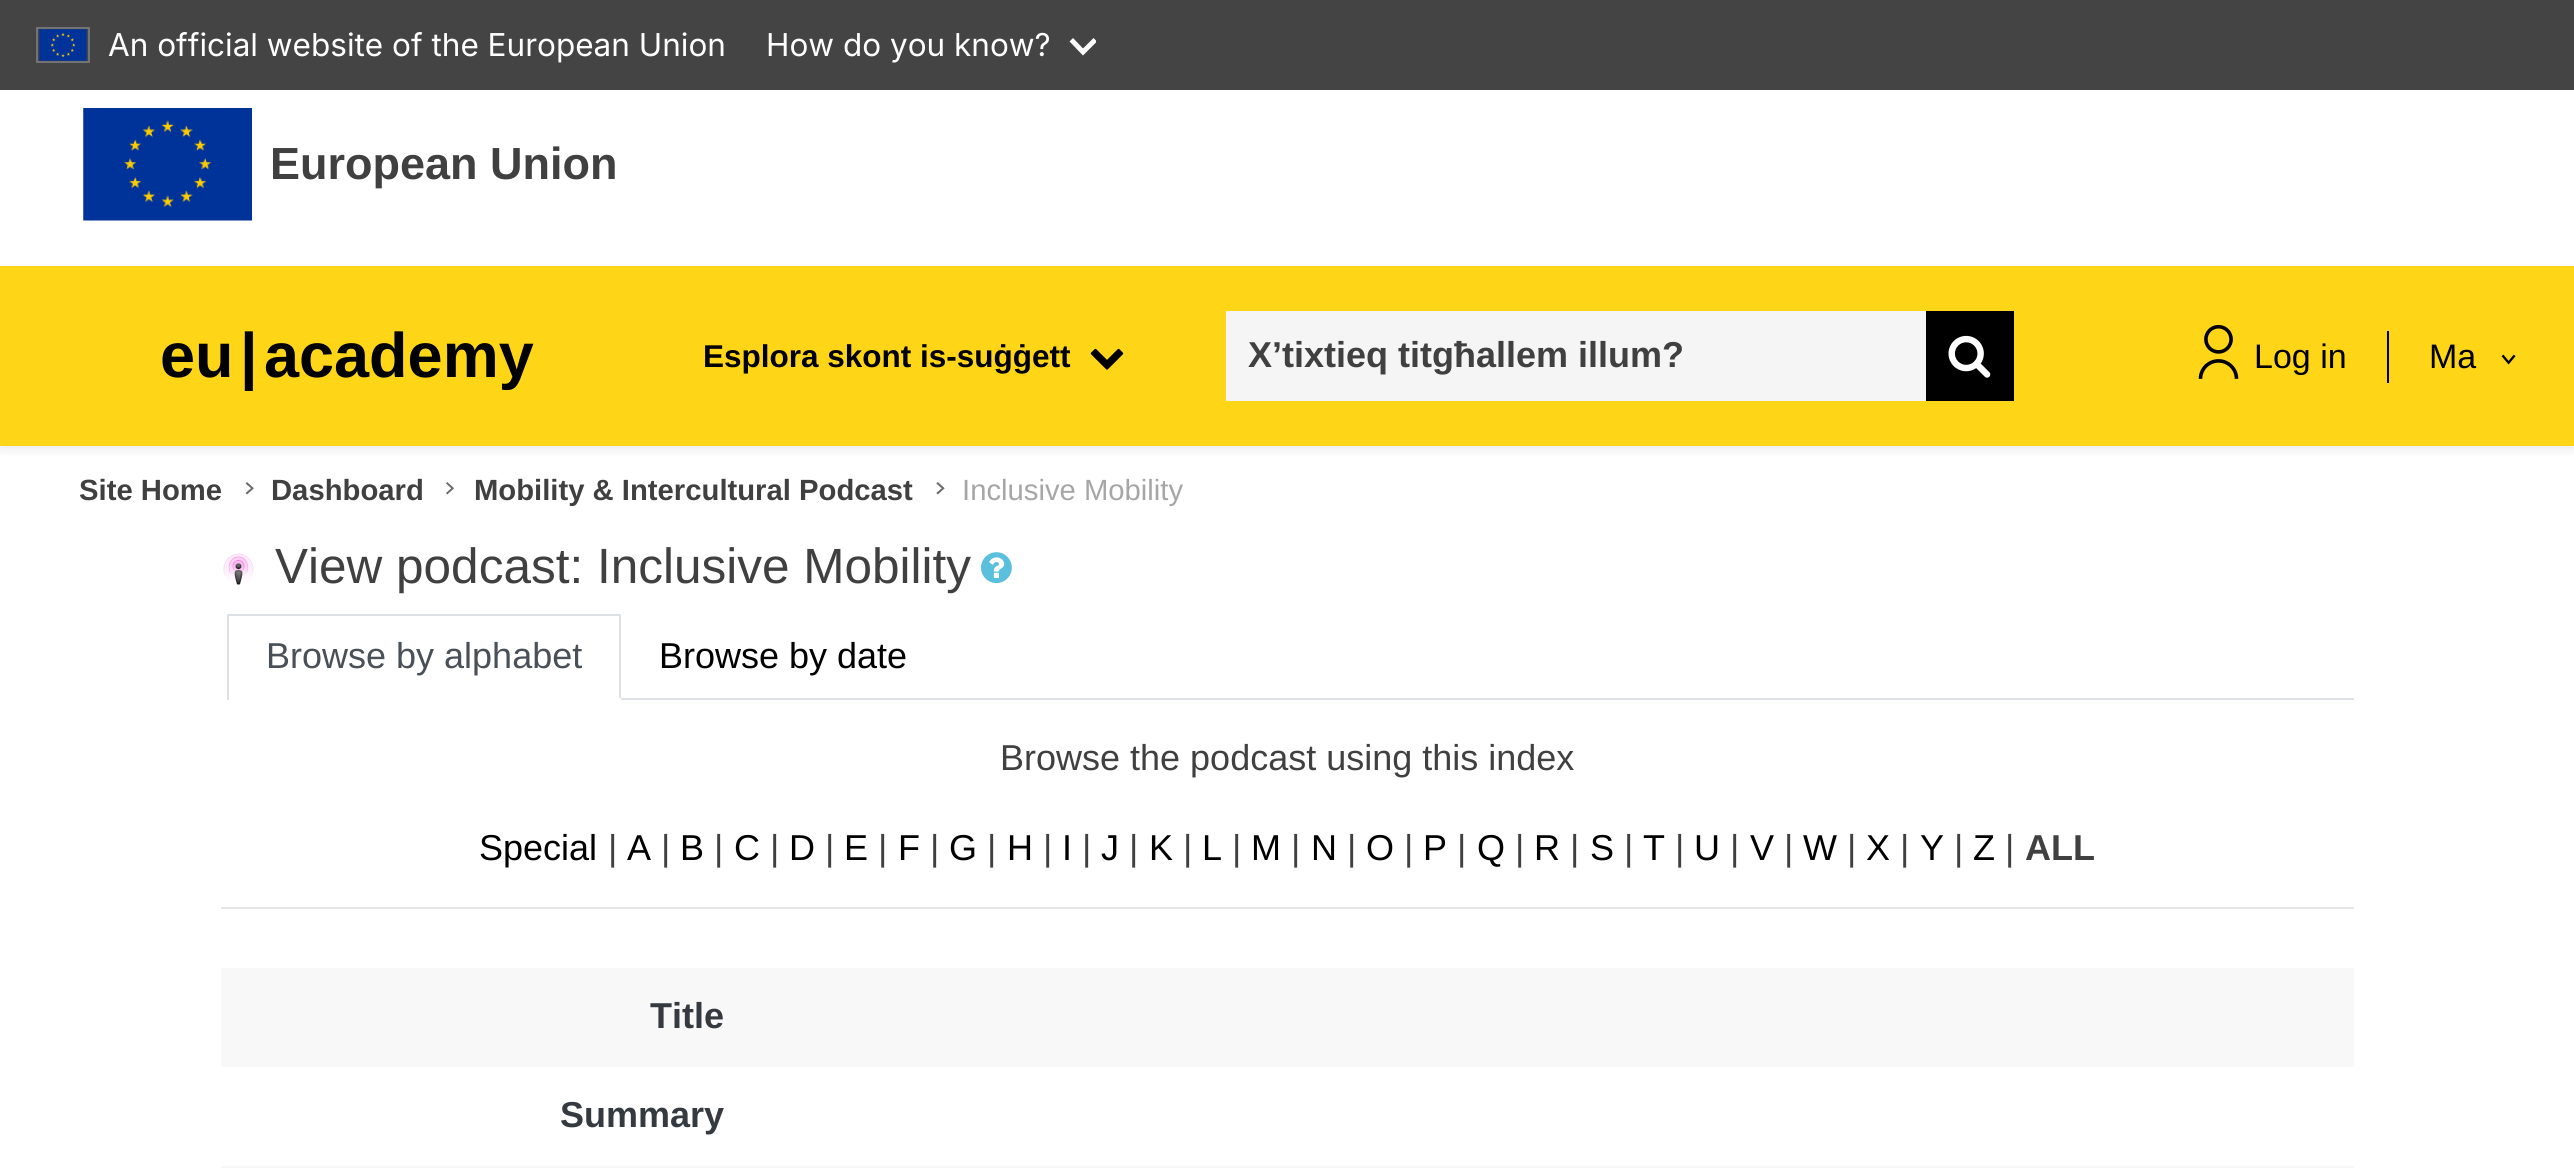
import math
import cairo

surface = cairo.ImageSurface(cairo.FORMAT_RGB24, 2574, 1168)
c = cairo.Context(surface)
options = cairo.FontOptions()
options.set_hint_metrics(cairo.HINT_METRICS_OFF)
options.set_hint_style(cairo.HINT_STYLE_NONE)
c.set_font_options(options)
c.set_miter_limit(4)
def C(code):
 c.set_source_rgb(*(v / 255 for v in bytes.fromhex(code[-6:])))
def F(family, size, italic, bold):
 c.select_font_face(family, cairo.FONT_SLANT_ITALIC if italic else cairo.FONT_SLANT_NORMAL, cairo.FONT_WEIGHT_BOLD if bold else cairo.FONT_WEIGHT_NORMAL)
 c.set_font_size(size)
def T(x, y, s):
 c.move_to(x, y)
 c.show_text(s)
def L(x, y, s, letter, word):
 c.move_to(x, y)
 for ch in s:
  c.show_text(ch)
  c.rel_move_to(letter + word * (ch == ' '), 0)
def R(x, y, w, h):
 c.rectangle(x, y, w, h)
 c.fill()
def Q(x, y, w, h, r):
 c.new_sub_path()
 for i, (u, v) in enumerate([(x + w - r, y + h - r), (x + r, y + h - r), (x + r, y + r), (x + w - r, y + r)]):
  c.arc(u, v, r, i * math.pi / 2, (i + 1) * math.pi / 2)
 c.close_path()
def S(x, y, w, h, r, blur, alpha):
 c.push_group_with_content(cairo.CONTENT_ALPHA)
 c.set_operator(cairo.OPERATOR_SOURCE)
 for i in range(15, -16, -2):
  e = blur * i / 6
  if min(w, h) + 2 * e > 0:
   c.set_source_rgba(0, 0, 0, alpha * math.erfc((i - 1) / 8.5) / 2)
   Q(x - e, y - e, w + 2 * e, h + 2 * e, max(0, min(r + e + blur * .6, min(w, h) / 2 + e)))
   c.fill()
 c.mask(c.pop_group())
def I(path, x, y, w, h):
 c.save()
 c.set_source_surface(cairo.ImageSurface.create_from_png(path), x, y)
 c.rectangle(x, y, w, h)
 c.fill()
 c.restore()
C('ffffff')
c.paint()
C('444444')
R(0,0,2574,90)
c.rectangle(37,28,52,34)
C('737373')
c.stroke()
I('1.png',39,29,48,32)
F('Inter',31.5,0,0)
C('ffffff')
T(108,56,'An official website of the European Union')
T(766,56,'How do you know?')
c.save()
c.rectangle(1069,32,27,27)
c.clip()
c.new_path()
c.move_to(1071.5,41.5)
c.line_to(1073,40)
c.line_to(1083,50.5)
c.line_to(1093.5,40)
c.line_to(1095,41.5)
c.line_to(1083,53.5)
c.close_path()
c.set_line_width(2.8)
c.stroke()
c.restore()
I('2.png',83,108,169,113)
F('Liberation Sans',45,0,1)
C('404040')
T(270,179,'European Union')
C('000000')
S(0,270,2574,180,0,4.5,.08)
C('ffd617')
R(0,266,2574,180)
F('Liberation Sans',63,0,1)
C('000000')
T(160,377,'eu')
L(240,377,'|',7,0)
T(264,377,'academy')
F('Liberation Sans',31.5,0,1)
T(703,367,'Esplora skont is-suġġett')
I('3.png',1090,348,34,22)
C('f5f5f5')
R(1226,311,700,90)
F('Liberation Sans',36,0,1)
C('404040')
T(1248,367,'X’tixtieq titgħallem illum?')
C('000000')
R(1926,311,88,90)
I('4.png',1948,335,43,43)
I('5.png',2198,324,41,55)
F('Liberation Sans',34,0,0)
T(2254,368,'Log in')
R(2387,331,2,52)
T(2429,368,'Ma')
I('6.png',2501,354,15,11)
F('Liberation Sans',29.25,0,1)
C('404040')
T(79,500,'Site Home')
I('7.png',245,482,9,13)
T(271,500,'Dashboard')
I('8.png',446,482,8,13)
T(474,500,'Mobility & Intercultural Podcast')
I('9.png',936,482,9,13)
F('Liberation Sans',29.25,0,0)
C('a6a6a6')
T(962,500,'Inclusive Mobility')
I('10.png',223,553,31,32)
F('Liberation Sans',49.5,0,0)
C('404040')
T(275,583,'View podcast: Inclusive Mobility')
I('11.png',981,552,31,32)
C('dee2e6')
R(621,698,1733,2)
R(227,614,394,2)
R(619,614,2,86)
C('ffffff')
R(619,698,2,2)
C('dee2e6')
R(227,614,2,86)
F('Liberation Sans',36,0,0)
C('495057')
T(266,668,'Browse by alphabet')
C('000000')
T(659,668,'Browse by date')
C('404040')
T(1000,770,'Browse the podcast using this index')
C('000000')
T(479,860,'Special')
C('404040')
T(608,860,'|')
C('000000')
T(627,860,'A')
C('404040')
T(661,860,'|')
C('000000')
T(680,860,'B')
C('404040')
T(714,860,'|')
C('000000')
T(734,860,'C')
C('404040')
T(770,860,'|')
C('000000')
T(789,860,'D')
C('404040')
T(825,860,'|')
C('000000')
T(844,860,'E')
C('404040')
T(878,860,'|')
C('000000')
T(898,860,'F')
C('404040')
T(930,860,'|')
C('000000')
T(949,860,'G')
C('404040')
T(987,860,'|')
C('000000')
T(1007,860,'H')
C('404040')
T(1043,860,'|')
C('000000')
T(1062,860,'I')
C('404040')
T(1082,860,'|')
C('000000')
T(1101,860,'J')
C('404040')
T(1129,860,'|')
C('000000')
T(1149,860,'K')
C('404040')
T(1183,860,'|')
C('000000')
T(1202,860,'L')
C('404040')
T(1232,860,'|')
C('000000')
T(1251,860,'M')
C('404040')
T(1291,860,'|')
C('000000')
T(1311,860,'N')
C('404040')
T(1347,860,'|')
C('000000')
T(1366,860,'O')
C('404040')
T(1404,860,'|')
C('000000')
T(1423,860,'P')
C('404040')
T(1457,860,'|')
C('000000')
T(1477,860,'Q')
C('404040')
T(1515,860,'|')
C('000000')
T(1534,860,'R')
C('404040')
T(1570,860,'|')
C('000000')
T(1590,860,'S')
C('404040')
T(1624,860,'|')
C('000000')
T(1643,860,'T')
C('404040')
T(1675,860,'|')
C('000000')
T(1694,860,'U')
C('404040')
T(1730,860,'|')
C('000000')
T(1750,860,'V')
C('404040')
T(1784,860,'|')
C('000000')
T(1803,860,'W')
C('404040')
T(1847,860,'|')
C('000000')
T(1866,860,'X')
C('404040')
T(1900,860,'|')
C('000000')
T(1920,860,'Y')
C('404040')
T(1954,860,'|')
C('000000')
T(1973,860,'Z')
C('404040')
T(2005,860,'|')
F('Liberation Sans',36,0,1)
T(2025,860,'ALL')
C('e6e6e6')
R(221,907,2133,2)
C('f8f8f8')
R(221,968,2133,99)
C('343a40')
T(650,1028,'Title')
T(560,1127,'Summary')
C('f7f7f7')
R(221,1166,2133,2)
surface.write_to_png('o.png')
